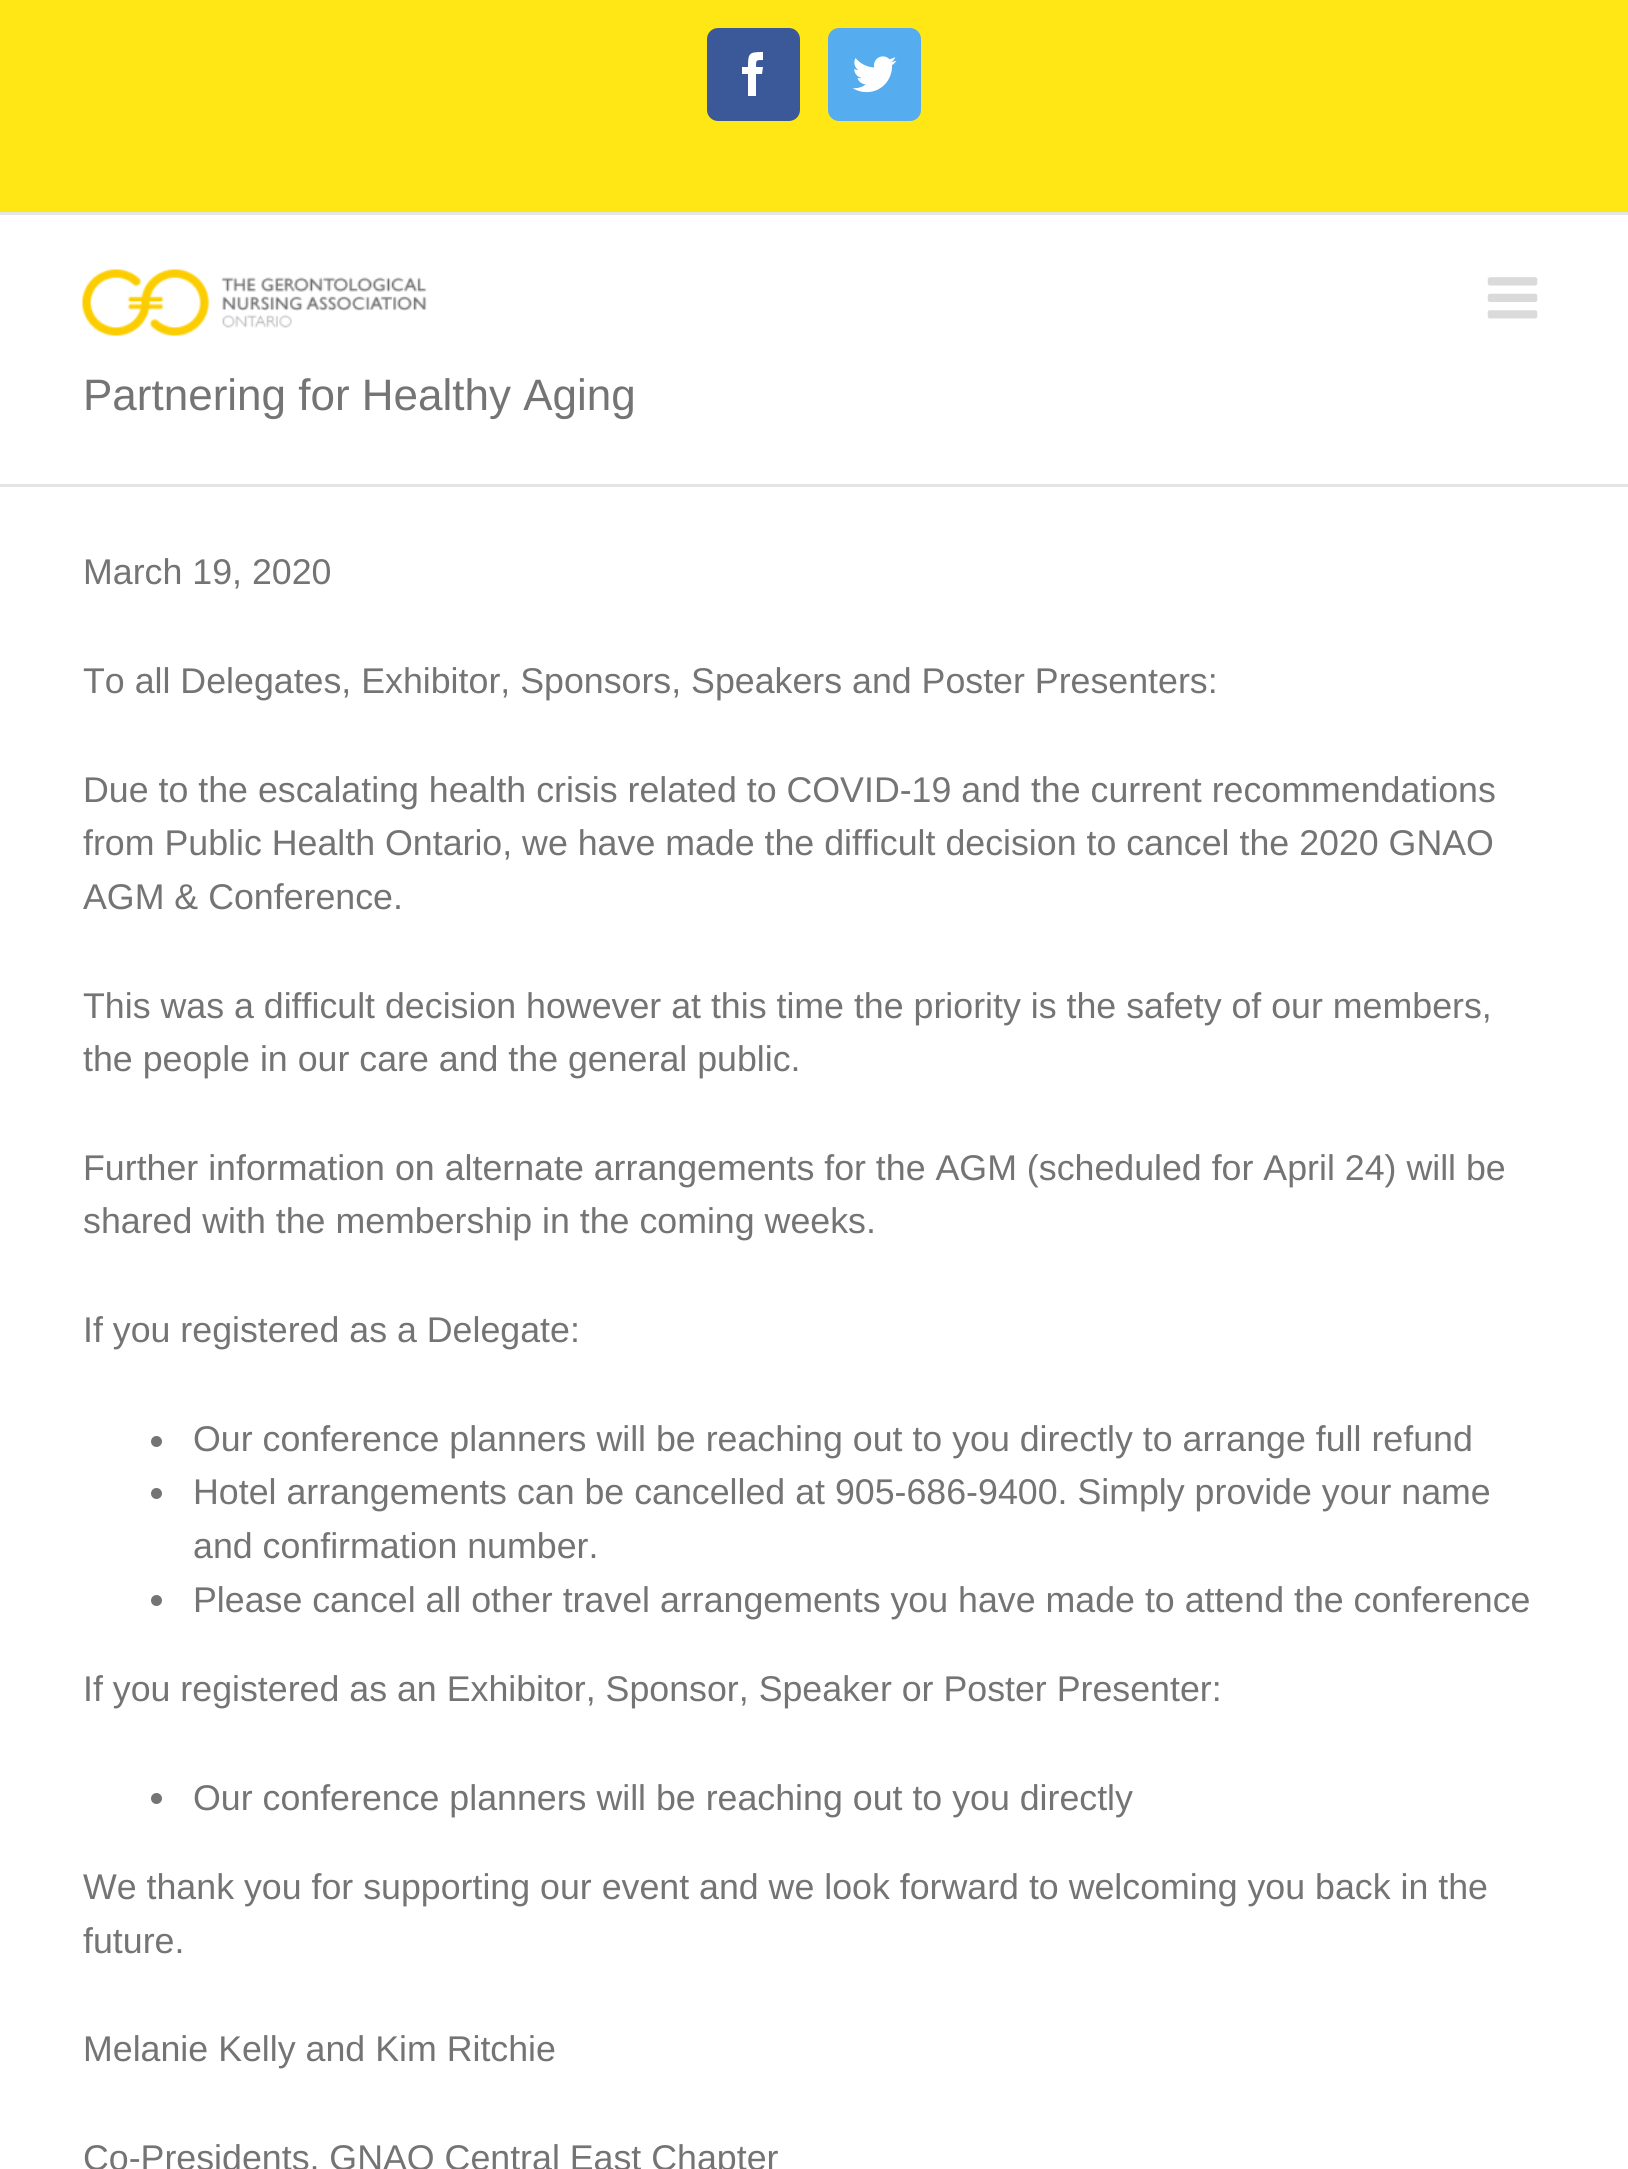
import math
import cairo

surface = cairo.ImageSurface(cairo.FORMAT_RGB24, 1628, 2169)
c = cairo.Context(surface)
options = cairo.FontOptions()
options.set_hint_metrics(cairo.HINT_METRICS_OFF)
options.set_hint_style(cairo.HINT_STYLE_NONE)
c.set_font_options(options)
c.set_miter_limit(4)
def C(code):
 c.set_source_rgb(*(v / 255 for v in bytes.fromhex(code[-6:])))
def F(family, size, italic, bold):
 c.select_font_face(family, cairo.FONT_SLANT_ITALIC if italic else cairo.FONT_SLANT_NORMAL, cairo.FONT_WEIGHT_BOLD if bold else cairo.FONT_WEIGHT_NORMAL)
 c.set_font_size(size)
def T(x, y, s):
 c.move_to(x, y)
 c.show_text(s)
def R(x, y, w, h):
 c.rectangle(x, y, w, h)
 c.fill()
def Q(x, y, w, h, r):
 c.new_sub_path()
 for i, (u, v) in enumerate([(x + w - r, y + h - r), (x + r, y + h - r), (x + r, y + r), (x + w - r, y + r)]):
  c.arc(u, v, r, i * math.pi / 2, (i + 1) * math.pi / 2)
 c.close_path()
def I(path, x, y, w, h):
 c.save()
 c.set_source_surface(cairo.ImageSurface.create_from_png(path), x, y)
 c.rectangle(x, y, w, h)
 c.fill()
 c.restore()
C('ffffff')
c.paint()
C('ffe716')
R(0,0,1628,212)
C('e5e5e5')
R(0,212,1628,3)
C('3b5998')
Q(708.5,29.5,90,90,9.5)
c.fill_preserve()
c.set_line_width(3)
c.stroke()
C('ffffff')
c.new_path()
c.move_to(756,96)
c.line_to(748,96)
c.line_to(748,74)
c.line_to(742,74)
c.line_to(742,67)
c.line_to(748,67)
c.curve_to(748,53,749,52,763,52)
c.line_to(763,60)
c.curve_to(756,60,756,60,756,67)
c.line_to(763,67)
c.line_to(762,74)
c.line_to(756,74)
c.close_path()
c.fill()
C('55acee')
Q(829.5,29.5,90,90,9.5)
c.fill_preserve()
c.stroke()
I('1.png',852,56,45,37)
C('e5e5e5')
R(0,484,1628,3)
I('2.png',1487,277,51,42)
I('3.png',82,269,345,67)
F('Liberation Sans',44,0,0)
C('747474')
T(83,410,'Partnering for Healthy Aging')
F('Liberation Sans',35.75,0,0)
T(83,584,'March 19, 2020')
T(83,693,'To all Delegates, Exhibitor, Sponsors, Speakers and Poster Presenters:')
T(83,802,'Due to the escalating health crisis related to COVID-19 and the current recommendations')
T(83,855,'from Public Health Ontario, we have made the difficult decision to cancel the 2020 GNAO')
T(83,909,'AGM & Conference.')
T(83,1018,'This was a difficult decision however at this time the priority is the safety of our members,')
T(83,1071,'the people in our care and the general public.')
T(83,1180,'Further information on alternate arrangements for the AGM (scheduled for April 24) will be')
T(83,1233,'shared with the membership in the coming weeks.')
T(83,1342,'If you registered as a Delegate:')
c.new_path()
c.arc(156.5,1441.5,5.5,0,2 * math.pi)
c.fill()
T(193,1451,'Our conference planners will be reaching out to you directly to arrange full refund')
c.new_path()
c.arc(156.5,1493.5,5.5,0,2 * math.pi)
c.fill()
T(193,1504,'Hotel arrangements can be cancelled at 905-686-9400. Simply provide your name')
T(193,1558,'and confirmation number.')
c.new_path()
c.arc(156.5,1600.5,5.5,0,2 * math.pi)
c.fill()
T(193,1612,'Please cancel all other travel arrangements you have made to attend the conference')
T(83,1701,'If you registered as an Exhibitor, Sponsor, Speaker or Poster Presenter:')
c.new_path()
c.arc(156.5,1798.5,5.5,0,2 * math.pi)
c.fill()
T(193,1810,'Our conference planners will be reaching out to you directly')
T(83,1899,'We thank you for supporting our event and we look forward to welcoming you back in the')
T(83,1953,'future.')
T(83,2061,'Melanie Kelly and Kim Ritchie')
T(83,2170,'Co-Presidents, GNAO Central East Chapter')
surface.write_to_png('o.png')
